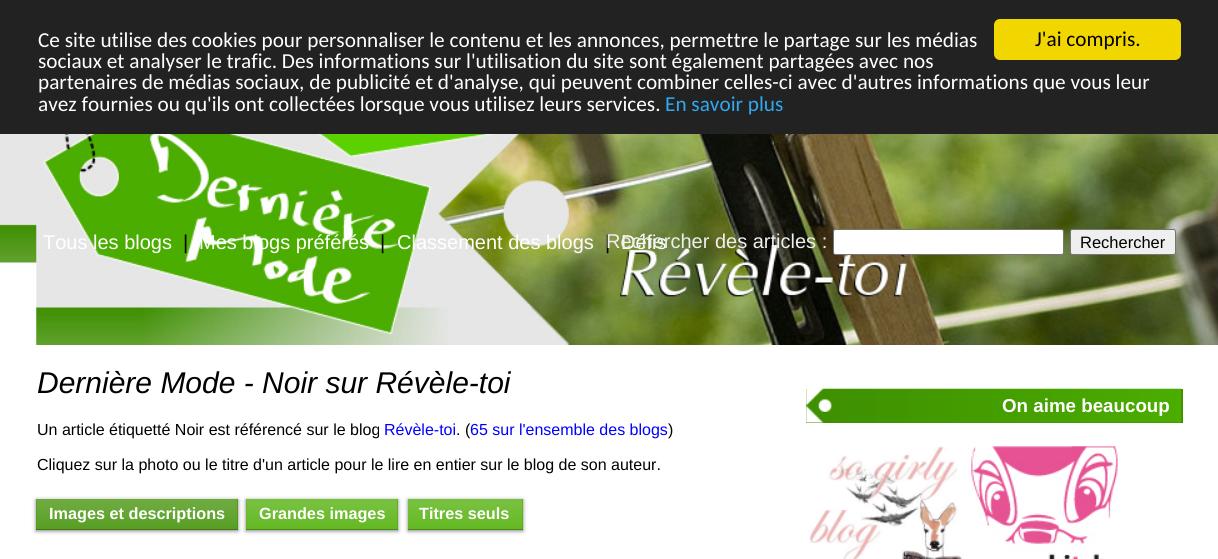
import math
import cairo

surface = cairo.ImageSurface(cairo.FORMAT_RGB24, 1218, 559)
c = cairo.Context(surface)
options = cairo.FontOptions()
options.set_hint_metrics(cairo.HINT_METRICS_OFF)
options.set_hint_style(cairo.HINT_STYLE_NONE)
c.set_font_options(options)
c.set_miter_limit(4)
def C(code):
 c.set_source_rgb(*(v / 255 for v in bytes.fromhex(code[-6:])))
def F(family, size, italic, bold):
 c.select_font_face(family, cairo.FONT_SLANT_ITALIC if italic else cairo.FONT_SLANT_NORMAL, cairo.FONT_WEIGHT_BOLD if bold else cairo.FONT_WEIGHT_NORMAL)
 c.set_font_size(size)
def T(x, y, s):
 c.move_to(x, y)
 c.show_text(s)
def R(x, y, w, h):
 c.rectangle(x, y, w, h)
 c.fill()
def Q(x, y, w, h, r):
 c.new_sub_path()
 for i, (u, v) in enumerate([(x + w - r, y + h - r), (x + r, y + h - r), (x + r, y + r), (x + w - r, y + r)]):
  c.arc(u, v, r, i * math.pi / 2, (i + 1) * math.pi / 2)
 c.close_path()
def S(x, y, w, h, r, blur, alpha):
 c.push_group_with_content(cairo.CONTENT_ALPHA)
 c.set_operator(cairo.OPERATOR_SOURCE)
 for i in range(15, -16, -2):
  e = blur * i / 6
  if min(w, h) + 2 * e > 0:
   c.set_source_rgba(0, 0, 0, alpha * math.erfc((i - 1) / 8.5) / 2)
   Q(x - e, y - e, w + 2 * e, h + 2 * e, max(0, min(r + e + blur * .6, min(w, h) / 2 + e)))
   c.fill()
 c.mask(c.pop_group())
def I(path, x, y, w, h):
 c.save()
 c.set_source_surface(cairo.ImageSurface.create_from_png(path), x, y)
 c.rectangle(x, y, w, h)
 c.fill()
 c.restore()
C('ffffff')
c.paint()
I('1.png',0,134,37,129)
C('222222')
R(0,0,1218,134)
C('f1d600')
Q(994,19,187,41,6)
c.fill()
F('Carlito',21.25,0,0)
C('000000')
T(1035,46,'J\'ai compris.')
C('ffffff')
T(38,47,'Ce site utilise des cookies pour personnaliser le contenu et les annonces, permettre le partage sur les médias')
T(38,68,'sociaux et analyser le trafic. Des informations sur l\'utilisation du site sont également partagées avec nos')
T(38,89,'partenaires de médias sociaux, de publicité et d\'analyse, qui peuvent combiner celles-ci avec d\'autres informations que vous leur')
T(38,111,'avez fournies ou qu\'ils ont collectées lorsque vous utilisez leurs services.')
C('31a8f0')
T(665,111,'En savoir plus')
I('2.png',36,134,1182,211)
F('Liberation Sans',20,0,0)
C('ffffff')
T(43,249,'Tous les blogs')
C('000000')
T(183,249,'|')
C('ffffff')
T(199,249,'Mes blogs préférés')
C('000000')
T(380,249,'|')
C('ffffff')
T(397,249,'Classement des blogs')
C('000000')
T(605,249,'|')
C('ffffff')
T(621,249,'Défis')
C('eeeeee')
T(606,248,'Rechercher des articles :')
C('ffffff')
Q(833.5,229.5,230,25,2)
c.fill_preserve()
C('767676')
c.set_line_width(1)
c.stroke()
C('efefef')
Q(1070.5,229.5,105,25,2)
c.fill_preserve()
C('767676')
c.stroke()
F('Liberation Sans',16.5,0,0)
C('000000')
T(1080,248,'Rechercher')
F('Liberation Sans',30,1,0)
T(37,393,'Dernière Mode - Noir sur Révèle-toi')
F('Liberation Sans',16,0,0)
T(37,435,'Un article étiquetté Noir est référencé sur le blog')
C('0000ff')
T(384,435,'Révèle-toi')
C('000000')
T(456,435,'. (')
C('0000ff')
T(470,435,'65 sur l\'ensemble des blogs')
C('000000')
T(668,435,')')
T(37,470,'Cliquez sur la photo ou le titre d\'un article pour le lire en entier sur le blog de son auteur.')
C('000000')
S(36,500,202,31,0,2,.5)
C('3e8f00')
R(36,499,202,31)
I('3.png',36,499,202,31)
c.set_source_rgba(0,0,0,0.25)
R(36,529,202,1)
F('Liberation Sans',16.25,0,1)
C('ffffff')
T(49,519,'Images et descriptions')
C('000000')
S(246,500,152,31,0,2,.5)
C('4bad00')
R(246,499,152,31)
I('4.png',246,499,152,31)
c.set_source_rgba(0,0,0,0.25)
R(246,529,152,1)
C('ffffff')
T(259,519,'Grandes images')
C('000000')
S(408,500,115,31,0,2,.5)
C('4bad00')
R(408,499,115,31)
I('5.png',408,499,115,31)
c.set_source_rgba(0,0,0,0.25)
R(408,529,115,1)
C('ffffff')
T(419,519,'Titres seuls')
C('3e8f00')
R(806,389,377,34)
I('6.png',806,388,376,35)
F('Liberation Sans',18.75,0,1)
C('ffffff')
T(1002,412,'On aime beaucoup')
I('7.png',808,446,154,113)
I('8.png',971,446,147,113)
surface.write_to_png('o.png')
